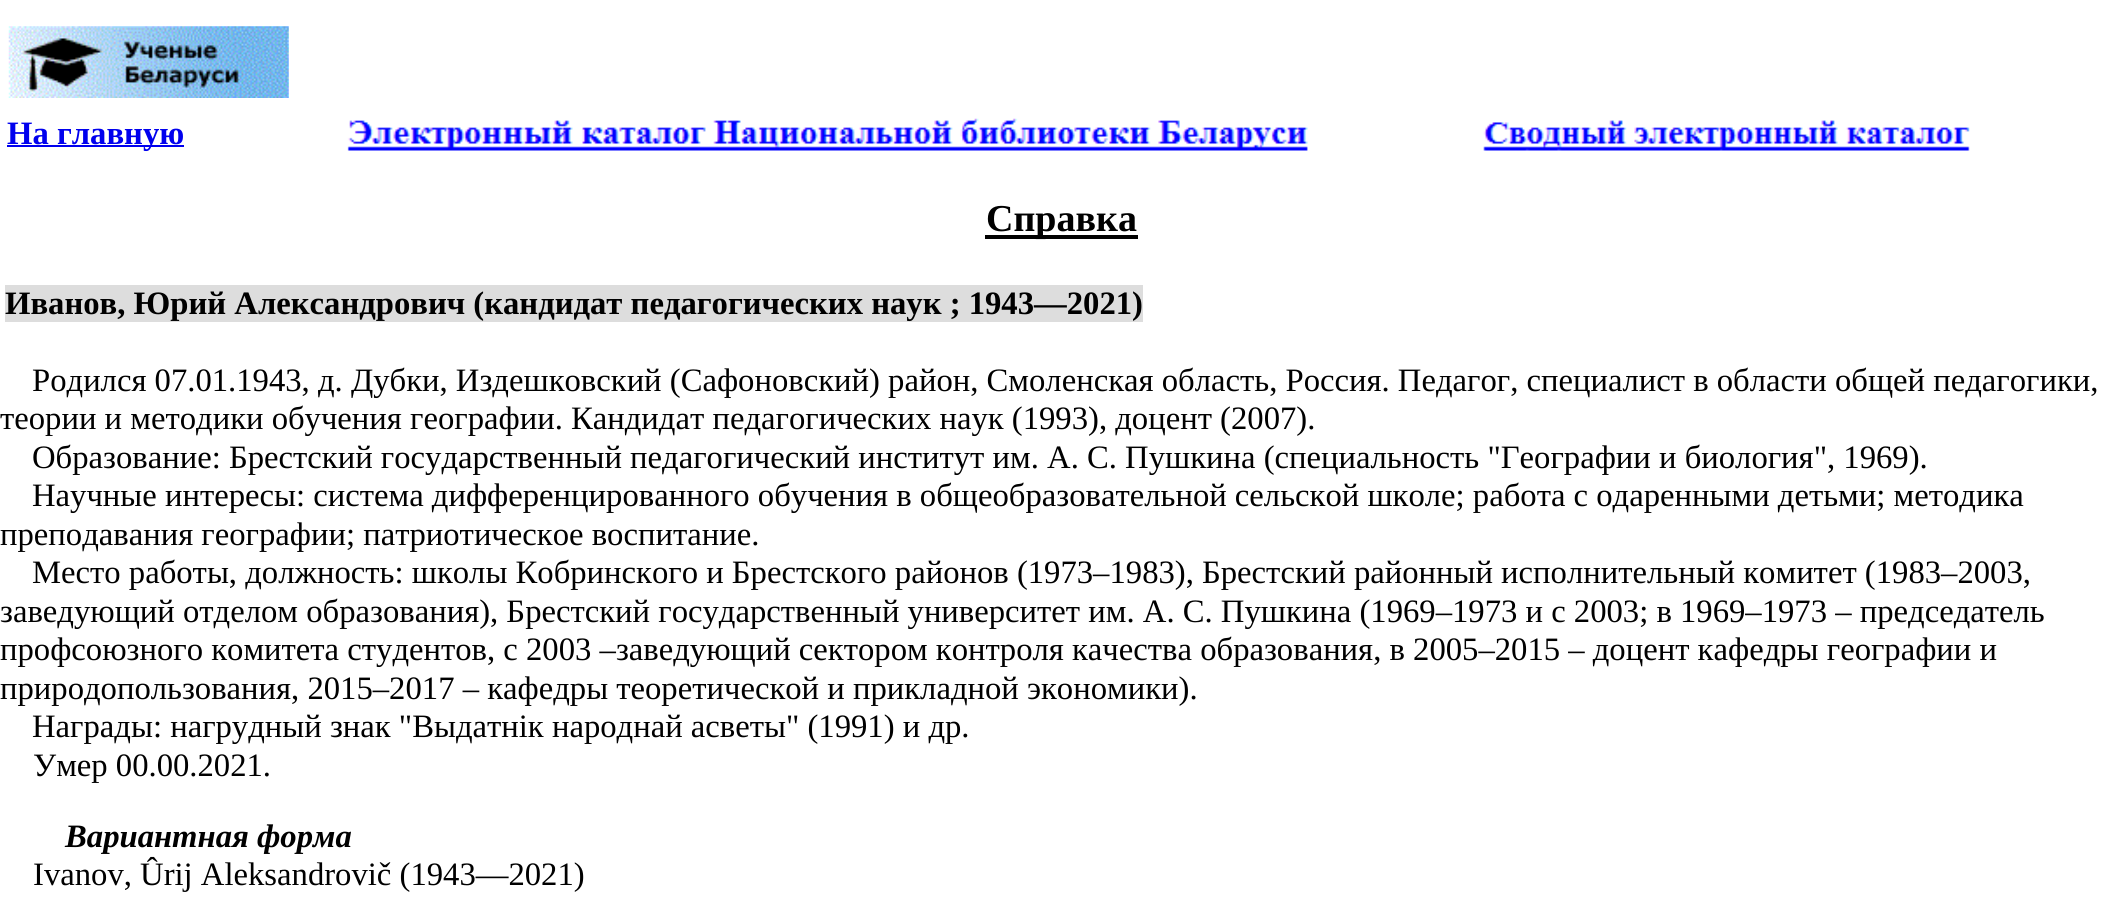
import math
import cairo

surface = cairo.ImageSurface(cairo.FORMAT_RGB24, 2122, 912)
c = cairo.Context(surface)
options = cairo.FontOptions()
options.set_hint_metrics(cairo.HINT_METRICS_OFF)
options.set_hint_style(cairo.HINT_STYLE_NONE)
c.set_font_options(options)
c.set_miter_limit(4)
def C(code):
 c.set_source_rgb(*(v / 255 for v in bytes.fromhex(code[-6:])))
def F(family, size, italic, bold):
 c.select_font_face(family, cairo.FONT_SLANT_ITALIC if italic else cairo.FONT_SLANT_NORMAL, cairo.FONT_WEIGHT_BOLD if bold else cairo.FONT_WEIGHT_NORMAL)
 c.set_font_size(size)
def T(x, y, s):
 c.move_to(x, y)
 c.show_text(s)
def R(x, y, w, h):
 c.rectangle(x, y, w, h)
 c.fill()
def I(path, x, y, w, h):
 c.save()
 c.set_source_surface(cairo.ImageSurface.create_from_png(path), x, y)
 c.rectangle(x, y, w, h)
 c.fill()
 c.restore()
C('ffffff')
c.paint()
I('1.png',8,26,281,72)
C('0000ee')
R(7,145,177,2)
F('Liberation Serif',32.67,0,1)
T(7,144,'На главную')
I('2.png',347,118,961,33)
I('3.png',1483,120,487,31)
C('000000')
R(985,235,153,4)
F('Liberation Serif',38,0,1)
T(986,231,'Справка')
C('dddddd')
R(5,285,1138,37)
F('Liberation Serif',32.67,0,1)
C('000000')
T(5,314,'Иванов, Юрий Александрович (кандидат педагогических наук ; 1943—2021)')
F('Liberation Serif',32.67,0,0)
T(32,391,'Родился 07.01.1943, д. Дубки, Издешковский (Сафоновский) район, Смоленская область, Россия. Педагог, специалист в области общей педагогики,')
T(0,429,'теории и методики обучения географии. Кандидат педагогических наук (1993), доцент (2007).')
T(32,468,'Образование: Брестский государственный педагогический институт им. А. С. Пушкина (специальность "Географии и биология", 1969).')
T(32,506,'Научные интересы: система дифференцированного обучения в общеобразовательной сельской школе; работа с одаренными детьми; методика')
T(0,545,'преподавания географии; патриотическое воспитание.')
T(32,583,'Место работы, должность: школы Кобринского и Брестского районов (1973–1983), Брестский районный исполнительный комитет (1983–2003,')
T(0,622,'заведующий отделом образования), Брестский государственный университет им. А. С. Пушкина (1969–1973 и с 2003; в 1969–1973 – председатель')
T(0,660,'профсоюзного комитета студентов, с 2003 –заведующий сектором контроля качества образования, в 2005–2015 – доцент кафедры географии и')
T(0,699,'природопользования, 2015–2017 – кафедры теоретической и прикладной экономики).')
T(32,737,'Награды: нагрудный знак "Выдатнік народнай асветы" (1991) и др.')
T(33,776,'Умер 00.00.2021.')
F('Liberation Serif',32.67,1,1)
T(65,847,'Вариантная форма')
F('Liberation Serif',32.67,0,0)
T(33,885,'Ivanov, Ûrij Aleksandrovič (1943—2021)')
surface.write_to_png('o.png')
